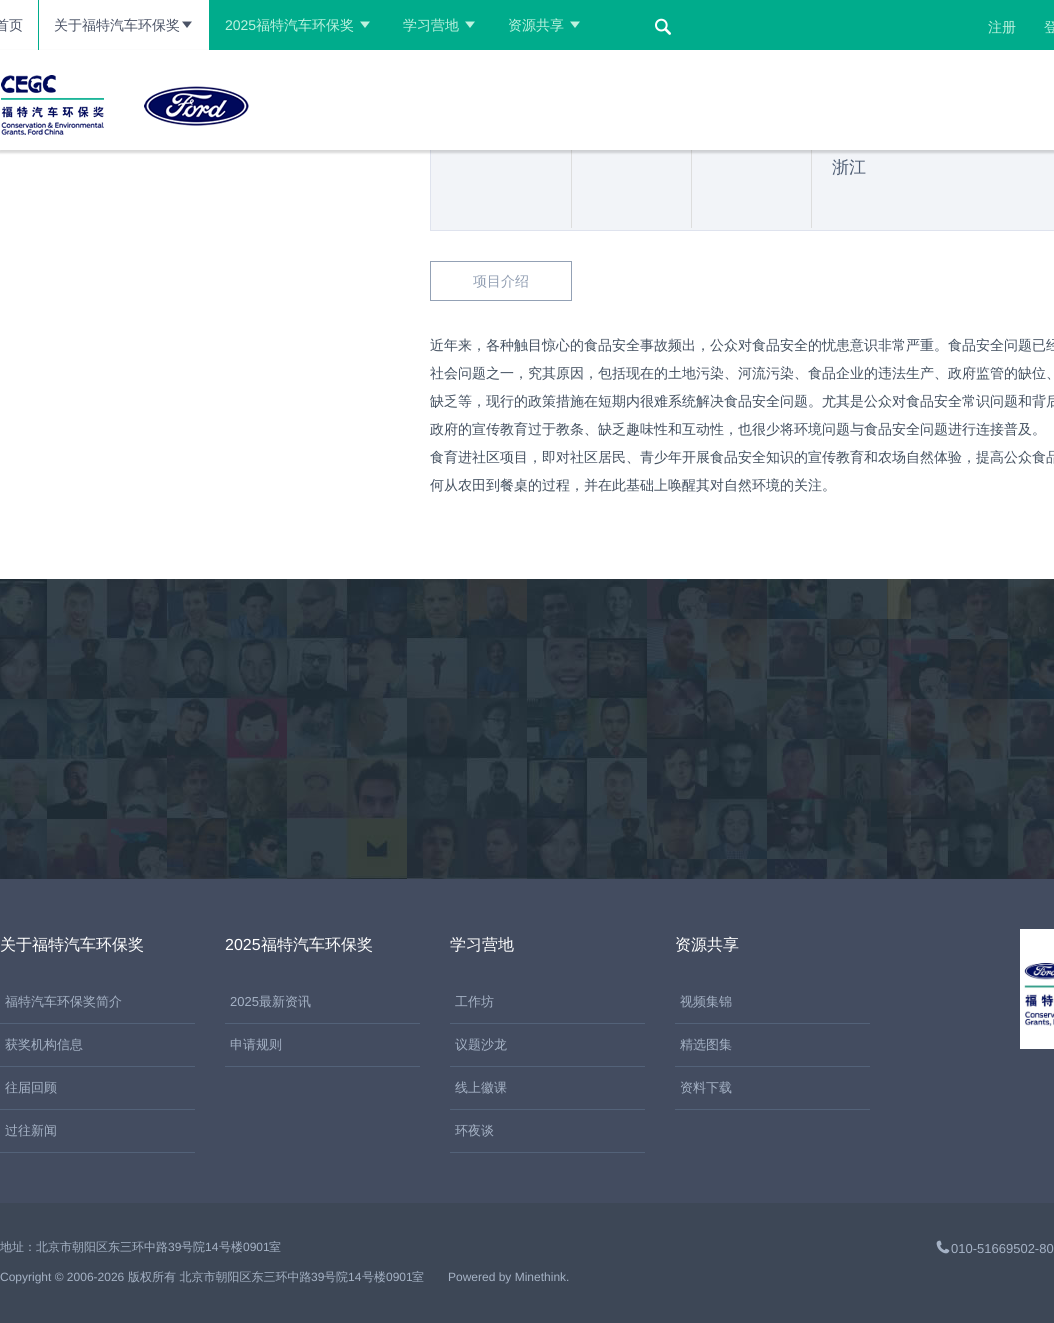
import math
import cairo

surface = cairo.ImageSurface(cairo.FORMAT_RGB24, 1054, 1323)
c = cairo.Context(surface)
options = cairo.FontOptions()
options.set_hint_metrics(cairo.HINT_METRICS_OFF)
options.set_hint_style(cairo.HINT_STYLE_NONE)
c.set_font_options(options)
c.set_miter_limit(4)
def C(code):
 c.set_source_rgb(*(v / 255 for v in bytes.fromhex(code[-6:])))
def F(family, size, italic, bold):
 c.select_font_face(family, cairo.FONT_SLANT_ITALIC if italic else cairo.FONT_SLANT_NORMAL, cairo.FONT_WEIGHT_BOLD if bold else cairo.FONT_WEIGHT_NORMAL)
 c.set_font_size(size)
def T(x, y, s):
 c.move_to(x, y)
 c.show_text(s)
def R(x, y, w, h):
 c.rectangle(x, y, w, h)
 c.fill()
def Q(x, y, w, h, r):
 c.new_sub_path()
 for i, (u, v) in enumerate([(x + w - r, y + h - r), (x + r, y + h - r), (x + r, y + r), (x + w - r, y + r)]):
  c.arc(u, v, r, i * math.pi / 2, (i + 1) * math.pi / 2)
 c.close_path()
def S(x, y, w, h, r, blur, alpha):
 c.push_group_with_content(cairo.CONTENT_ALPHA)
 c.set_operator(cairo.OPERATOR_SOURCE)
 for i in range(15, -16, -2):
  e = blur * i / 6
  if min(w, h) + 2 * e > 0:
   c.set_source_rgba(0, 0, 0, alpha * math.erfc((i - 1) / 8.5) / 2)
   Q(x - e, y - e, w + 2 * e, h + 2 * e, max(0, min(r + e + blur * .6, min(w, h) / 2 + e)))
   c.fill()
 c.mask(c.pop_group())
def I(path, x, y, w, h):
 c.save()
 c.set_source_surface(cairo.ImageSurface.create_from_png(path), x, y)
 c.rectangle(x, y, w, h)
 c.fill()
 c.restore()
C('ffffff')
c.paint()
C('f2f4f8')
R(431,150,623,80)
c.rectangle(430.5,39.5,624,191)
C('dfe3ee')
c.set_line_width(1)
c.stroke()
C('dddddd')
R(571,150,1,78)
R(691,150,1,78)
R(811,150,1,78)
C('000000')
S(-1,51,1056,102,0,1,.15)
C('00ac8c')
R(209,0,845,50)
R(38,0,1,50)
F('WenQuanYi Zen Hei Medium',14,0,0)
C('4b5366')
T(-5,30,'首页')
T(54,30,'关于福特汽车环保奖')
c.new_path()
c.move_to(187,28)
c.line_to(192,21.5)
c.line_to(182,21.5)
c.close_path()
c.fill()
F('Liberation Sans',14,0,0)
C('bdf2df')
T(225,30,'2025')
F('WenQuanYi Zen Hei Medium',14,0,0)
T(256,30,'福特汽车环保奖')
c.new_path()
c.move_to(365,28)
c.line_to(370,21.5)
c.line_to(360,21.5)
c.close_path()
c.fill()
T(403,30,'学习营地')
c.new_path()
c.move_to(470,28)
c.line_to(475,21.5)
c.line_to(465,21.5)
c.close_path()
c.fill()
T(508,30,'资源共享')
c.new_path()
c.move_to(575,28)
c.line_to(580,21.5)
c.line_to(570,21.5)
c.close_path()
c.fill()
I('1.png',655,18,16,17)
T(988,32,'注册')
T(1044,32,'登')
C('ffffff')
R(0,50,1054,100)
I('2.png',1,75,248,60)
F('WenQuanYi Zen Hei Medium',17,0,0)
C('4b5970')
T(832,173,'浙江')
c.rectangle(430.5,261.5,141,39)
C('93a1b5')
c.stroke()
F('WenQuanYi Zen Hei Medium',14,0,0)
C('929fb3')
T(473,286,'项目介绍')
C('435060')
T(430,350,'近年来，各种触目惊心的食品安全事故频出，公众对食品安全的忧患意识非常严重。食品安全问题已经')
T(430,378,'社会问题之一，究其原因，包括现在的土地污染、河流污染、食品企业的违法生产、政府监管的缺位、')
T(430,406,'缺乏等，现行的政策措施在短期内很难系统解决食品安全问题。尤其是公众对食品安全常识问题和背后')
T(430,434,'政府的宣传教育过于教条、缺乏趣味性和互动性，也很少将环境问题与食品安全问题进行连接普及。')
T(430,462,'食育进社区项目，即对社区居民、青少年开展食品安全知识的宣传教育和农场自然体验，提高公众食品')
T(430,490,'何从农田到餐桌的过程，并在此基础上唤醒其对自然环境的关注。')
I('3.png',0,579,1054,300)
C('434c60')
R(0,879,1054,324)
F('WenQuanYi Zen Hei Medium',16,0,0)
C('ffffff')
T(0,950,'关于福特汽车环保奖')
C('536279')
R(0,1023,195,1)
F('WenQuanYi Zen Hei Medium',13,0,0)
C('a5b2c5')
T(5,1006,'福特汽车环保奖简介')
C('536279')
R(0,1066,195,1)
C('a5b2c5')
T(5,1049,'获奖机构信息')
C('536279')
R(0,1109,195,1)
C('a5b2c5')
T(5,1092,'往届回顾')
C('536279')
R(0,1152,195,1)
C('a5b2c5')
T(5,1135,'过往新闻')
F('Liberation Sans',16,0,0)
C('ffffff')
T(225,950,'2025')
F('WenQuanYi Zen Hei Medium',16,0,0)
T(261,950,'福特汽车环保奖')
C('536279')
R(225,1023,195,1)
F('Liberation Sans',13,0,0)
C('a5b2c5')
T(230,1006,'2025')
F('WenQuanYi Zen Hei Medium',13,0,0)
T(259,1006,'最新资讯')
C('536279')
R(225,1066,195,1)
C('a5b2c5')
T(230,1049,'申请规则')
F('WenQuanYi Zen Hei Medium',16,0,0)
C('ffffff')
T(450,950,'学习营地')
C('536279')
R(450,1023,195,1)
F('WenQuanYi Zen Hei Medium',13,0,0)
C('a5b2c5')
T(455,1006,'工作坊')
C('536279')
R(450,1066,195,1)
C('a5b2c5')
T(455,1049,'议题沙龙')
C('536279')
R(450,1109,195,1)
C('a5b2c5')
T(455,1092,'线上徽课')
C('536279')
R(450,1152,195,1)
C('a5b2c5')
T(455,1135,'环夜谈')
F('WenQuanYi Zen Hei Medium',16,0,0)
C('ffffff')
T(675,950,'资源共享')
C('536279')
R(675,1023,195,1)
F('WenQuanYi Zen Hei Medium',13,0,0)
C('a5b2c5')
T(680,1006,'视频集锦')
C('536279')
R(675,1066,195,1)
C('a5b2c5')
T(680,1049,'精选图集')
C('536279')
R(675,1109,195,1)
C('a5b2c5')
T(680,1092,'资料下载')
I('4.png',1020,929,34,120)
C('3d4756')
R(0,1203,1054,120)
F('WenQuanYi Zen Hei Medium',12,0,0)
C('a5b2c5')
T(0,1251,'地址：北京市朝阳区东三环中路')
F('Liberation Sans',12,0,0)
T(168,1251,'39')
F('WenQuanYi Zen Hei Medium',12,0,0)
T(181,1251,'号院')
F('Liberation Sans',12,0,0)
T(205,1251,'14')
F('WenQuanYi Zen Hei Medium',12,0,0)
T(219,1251,'号楼')
F('Liberation Sans',12,0,0)
T(243,1251,'0901')
F('WenQuanYi Zen Hei Medium',12,0,0)
T(269,1251,'室')
I('5.png',936,1240,14,14)
F('Liberation Sans',13,0,0)
T(951,1253,'010-51669502-80')
F('Liberation Sans',12,0,0)
T(0,1281,'Copyright © 2006-2026')
F('WenQuanYi Zen Hei Medium',12,0,0)
T(128,1281,'版权所有 北京市朝阳区东三环中路')
F('Liberation Sans',12,0,0)
T(311,1281,'39')
F('WenQuanYi Zen Hei Medium',12,0,0)
T(324,1281,'号院')
F('Liberation Sans',12,0,0)
T(348,1281,'14')
F('WenQuanYi Zen Hei Medium',12,0,0)
T(362,1281,'号楼')
F('Liberation Sans',12,0,0)
T(386,1281,'0901')
F('WenQuanYi Zen Hei Medium',12,0,0)
T(412,1281,'室')
F('Liberation Sans',12,0,0)
T(448,1281,'Powered by Minethink.')
surface.write_to_png('o.png')
